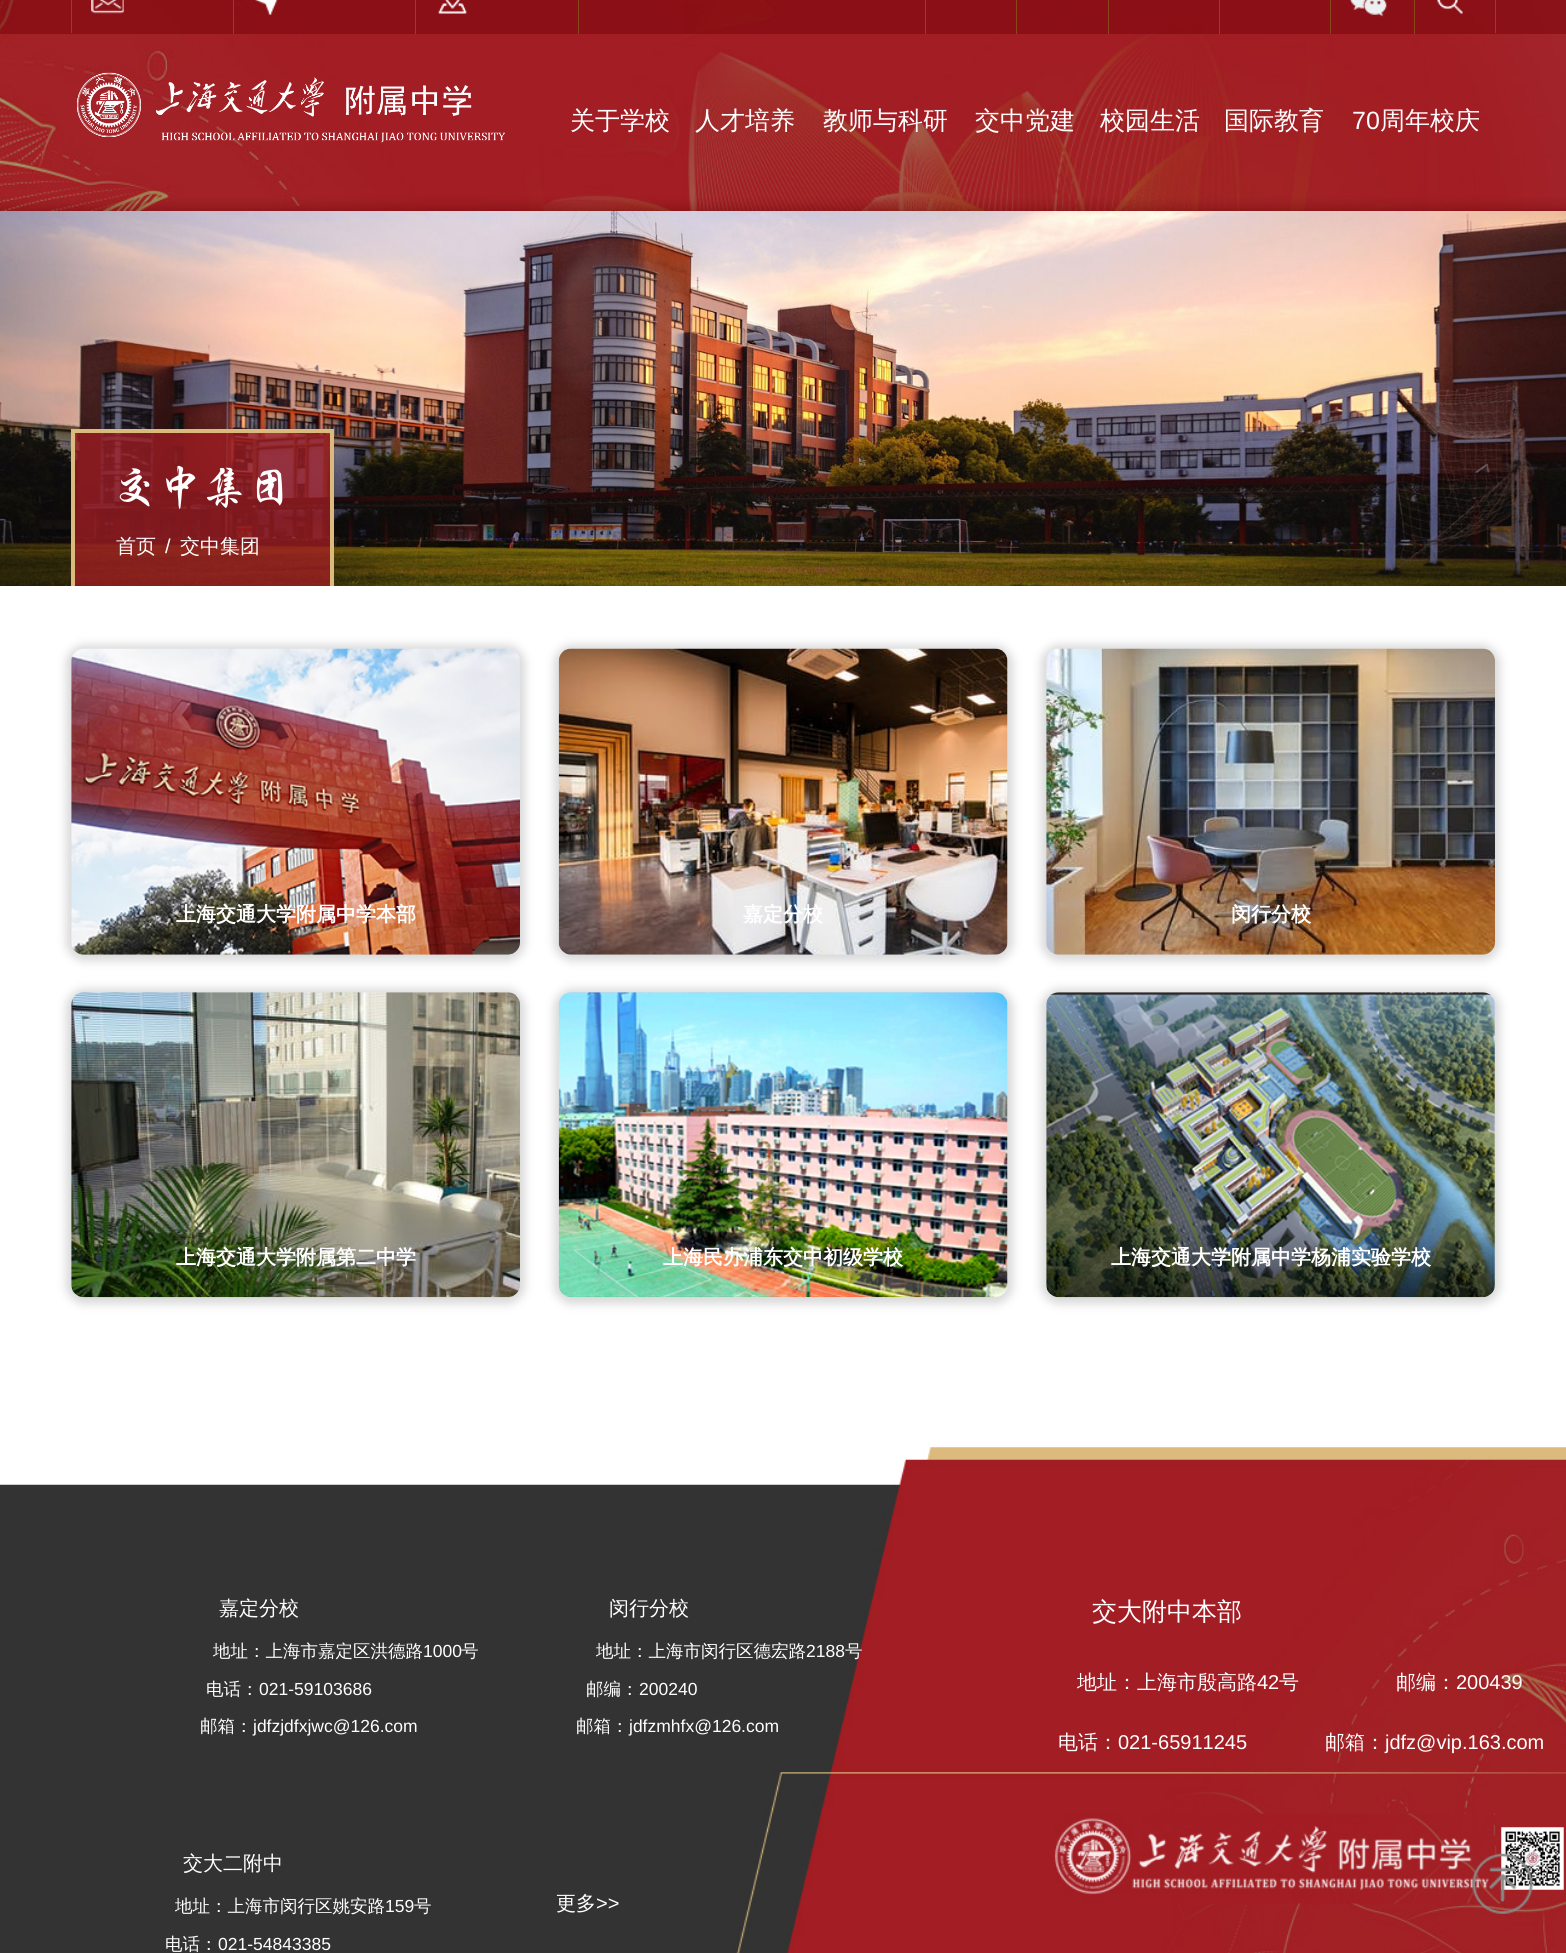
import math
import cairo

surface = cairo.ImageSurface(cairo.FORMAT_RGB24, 1566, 1953)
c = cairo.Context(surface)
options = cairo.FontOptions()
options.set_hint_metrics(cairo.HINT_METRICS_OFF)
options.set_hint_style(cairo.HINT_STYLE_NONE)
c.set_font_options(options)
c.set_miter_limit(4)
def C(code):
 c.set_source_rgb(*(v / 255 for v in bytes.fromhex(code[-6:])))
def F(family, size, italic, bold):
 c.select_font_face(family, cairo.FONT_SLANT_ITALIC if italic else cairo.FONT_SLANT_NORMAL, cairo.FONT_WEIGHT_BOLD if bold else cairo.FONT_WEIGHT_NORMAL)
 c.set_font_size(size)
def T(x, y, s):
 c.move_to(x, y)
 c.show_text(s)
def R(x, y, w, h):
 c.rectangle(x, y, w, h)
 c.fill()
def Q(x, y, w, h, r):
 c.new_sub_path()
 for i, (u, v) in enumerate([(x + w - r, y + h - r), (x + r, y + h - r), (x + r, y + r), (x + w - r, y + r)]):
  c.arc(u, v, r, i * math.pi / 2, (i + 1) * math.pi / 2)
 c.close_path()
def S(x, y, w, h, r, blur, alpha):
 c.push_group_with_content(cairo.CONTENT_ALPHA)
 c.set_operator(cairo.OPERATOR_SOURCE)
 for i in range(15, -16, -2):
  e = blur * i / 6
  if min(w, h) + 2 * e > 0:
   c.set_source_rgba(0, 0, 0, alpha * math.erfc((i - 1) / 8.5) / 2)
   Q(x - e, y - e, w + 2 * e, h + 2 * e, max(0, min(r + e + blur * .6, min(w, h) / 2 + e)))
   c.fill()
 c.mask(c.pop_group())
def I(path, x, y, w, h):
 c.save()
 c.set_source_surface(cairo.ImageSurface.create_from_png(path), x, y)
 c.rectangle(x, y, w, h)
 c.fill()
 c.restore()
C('ffffff')
c.paint()
I('1.png',0,0,1566,211)
c.set_source_rgba(0.498,0.031,0.055,0.65)
R(0,0,1566,34)
C('8a471a')
R(71,0,1,33)
R(233,0,1,34)
I('2.png',91,0,33,14)
R(415,0,1,34)
I('3.png',255,0,23,15)
R(578,0,1,34)
I('4.png',438,0,29,14)
R(1495,0,1,33)
R(925,0,1,34)
R(1016,0,1,34)
R(1108,0,1,34)
R(1219,0,1,34)
R(1330,0,1,34)
I('5.png',1350,0,37,17)
R(1414,0,1,34)
I('6.png',1437,0,26,14)
I('7.png',77,72,428,71)
F('WenQuanYi Zen Hei Medium',25,0,0)
C('ffffff')
T(570,129,'关于学校')
T(695,129,'人才培养')
T(823,129,'教师与科研')
T(975,129,'交中党建')
T(1100,129,'校园生活')
T(1224,129,'国际教育')
F('Liberation Sans',25,0,0)
T(1352,129,'70')
F('WenQuanYi Zen Hei Medium',25,0,0)
T(1380,129,'周年校庆')
I('8.png',0,211,1566,375)
c.set_source_rgba(0.635,0.114,0.137,0.75)
R(75,433,255,153)
C('dbbb7d')
R(71,429,263,4)
R(330,429,4,157)
R(71,429,4,157)
F('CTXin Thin',45,0,0)
C('ffffff')
T(112,503,'交中集团')
F('WenQuanYi Zen Hei Medium',20,0,0)
T(116,553,'首页')
F('Liberation Sans',20,0,0)
T(165,553,'/')
F('WenQuanYi Zen Hei Medium',20,0,0)
T(180,553,'交中集团')
C('d9d9d9')
S(66,645,459,316,18,4.5,1)
I('9.png',71,648,449,307)
F('WenQuanYi Zen Hei',20,0,1)
C('ffffff')
T(176,921,'上海交通大学附属中学本部')
C('d9d9d9')
S(554,645,459,316,18,4.5,1)
I('10.png',558,648,450,307)
C('ffffff')
T(743,921,'嘉定分校')
C('d9d9d9')
S(1041,645,459,316,18,4.5,1)
I('11.png',1046,648,449,307)
C('ffffff')
T(1231,921,'闵行分校')
C('d9d9d9')
S(66,989,459,315,18,4.5,1)
I('12.png',71,992,449,306)
C('ffffff')
T(176,1264,'上海交通大学附属第二中学')
C('d9d9d9')
S(554,989,459,315,18,4.5,1)
I('13.png',558,992,450,306)
C('ffffff')
T(663,1264,'上海民办浦东交中初级学校')
C('d9d9d9')
S(1041,989,459,315,18,4.5,1)
I('14.png',1046,992,449,306)
C('ffffff')
T(1111,1264,'上海交通大学附属中学杨浦实验学校')
I('15.png',0,1447,1566,506)
F('WenQuanYi Zen Hei Medium',20,0,0)
T(219,1615,'嘉定分校')
F('WenQuanYi Zen Hei Medium',17.5,0,0)
T(213,1657,'地址：上海市嘉定区洪德路')
F('Liberation Sans',17.5,0,0)
T(423,1657,'1000')
F('WenQuanYi Zen Hei Medium',17.5,0,0)
T(461,1657,'号')
T(206,1695,'电话：')
F('Liberation Sans',17.5,0,0)
T(259,1695,'021-59103686')
F('WenQuanYi Zen Hei Medium',17.5,0,0)
T(200,1732,'邮箱：')
F('Liberation Sans',17.5,0,0)
T(253,1732,'jdfzjdfxjwc@126.com')
F('WenQuanYi Zen Hei Medium',20,0,0)
T(609,1615,'闵行分校')
F('WenQuanYi Zen Hei Medium',17.5,0,0)
T(596,1657,'地址：上海市闵行区德宏路')
F('Liberation Sans',17.5,0,0)
T(806,1657,'2188')
F('WenQuanYi Zen Hei Medium',17.5,0,0)
T(845,1657,'号')
T(586,1695,'邮编：')
F('Liberation Sans',17.5,0,0)
T(639,1695,'200240')
F('WenQuanYi Zen Hei Medium',17.5,0,0)
T(576,1732,'邮箱：')
F('Liberation Sans',17.5,0,0)
T(629,1732,'jdfzmhfx@126.com')
F('WenQuanYi Zen Hei Medium',20,0,0)
T(183,1870,'交大二附中')
F('WenQuanYi Zen Hei Medium',17.5,0,0)
T(175,1912,'地址：上海市闵行区姚安路')
F('Liberation Sans',17.5,0,0)
T(385,1912,'159')
F('WenQuanYi Zen Hei Medium',17.5,0,0)
T(414,1912,'号')
T(165,1950,'电话：')
F('Liberation Sans',17.5,0,0)
T(218,1950,'021-54843385')
F('WenQuanYi Zen Hei Medium',20,0,0)
T(556,1910,'更多')
F('Liberation Sans',20,0,0)
T(596,1910,'>>')
F('WenQuanYi Zen Hei Medium',25,0,0)
T(1092,1620,'交大附中本部')
F('WenQuanYi Zen Hei Medium',20,0,0)
T(1077,1689,'地址：上海市殷高路')
F('Liberation Sans',20,0,0)
T(1257,1689,'42')
F('WenQuanYi Zen Hei Medium',20,0,0)
T(1279,1689,'号')
T(1396,1689,'邮编：')
F('Liberation Sans',20,0,0)
T(1456,1689,'200439')
F('WenQuanYi Zen Hei Medium',20,0,0)
T(1058,1749,'电话：')
F('Liberation Sans',20,0,0)
T(1118,1749,'021-65911245')
F('WenQuanYi Zen Hei Medium',20,0,0)
T(1325,1749,'邮箱：')
F('Liberation Sans',20,0,0)
T(1385,1749,'jdfz@vip.163.com')
I('16.png',1054,1813,447,91)
I('17.png',1501,1827,63,63)
I('18.png',1472,1853,61,61)
surface.write_to_png('o.png')
